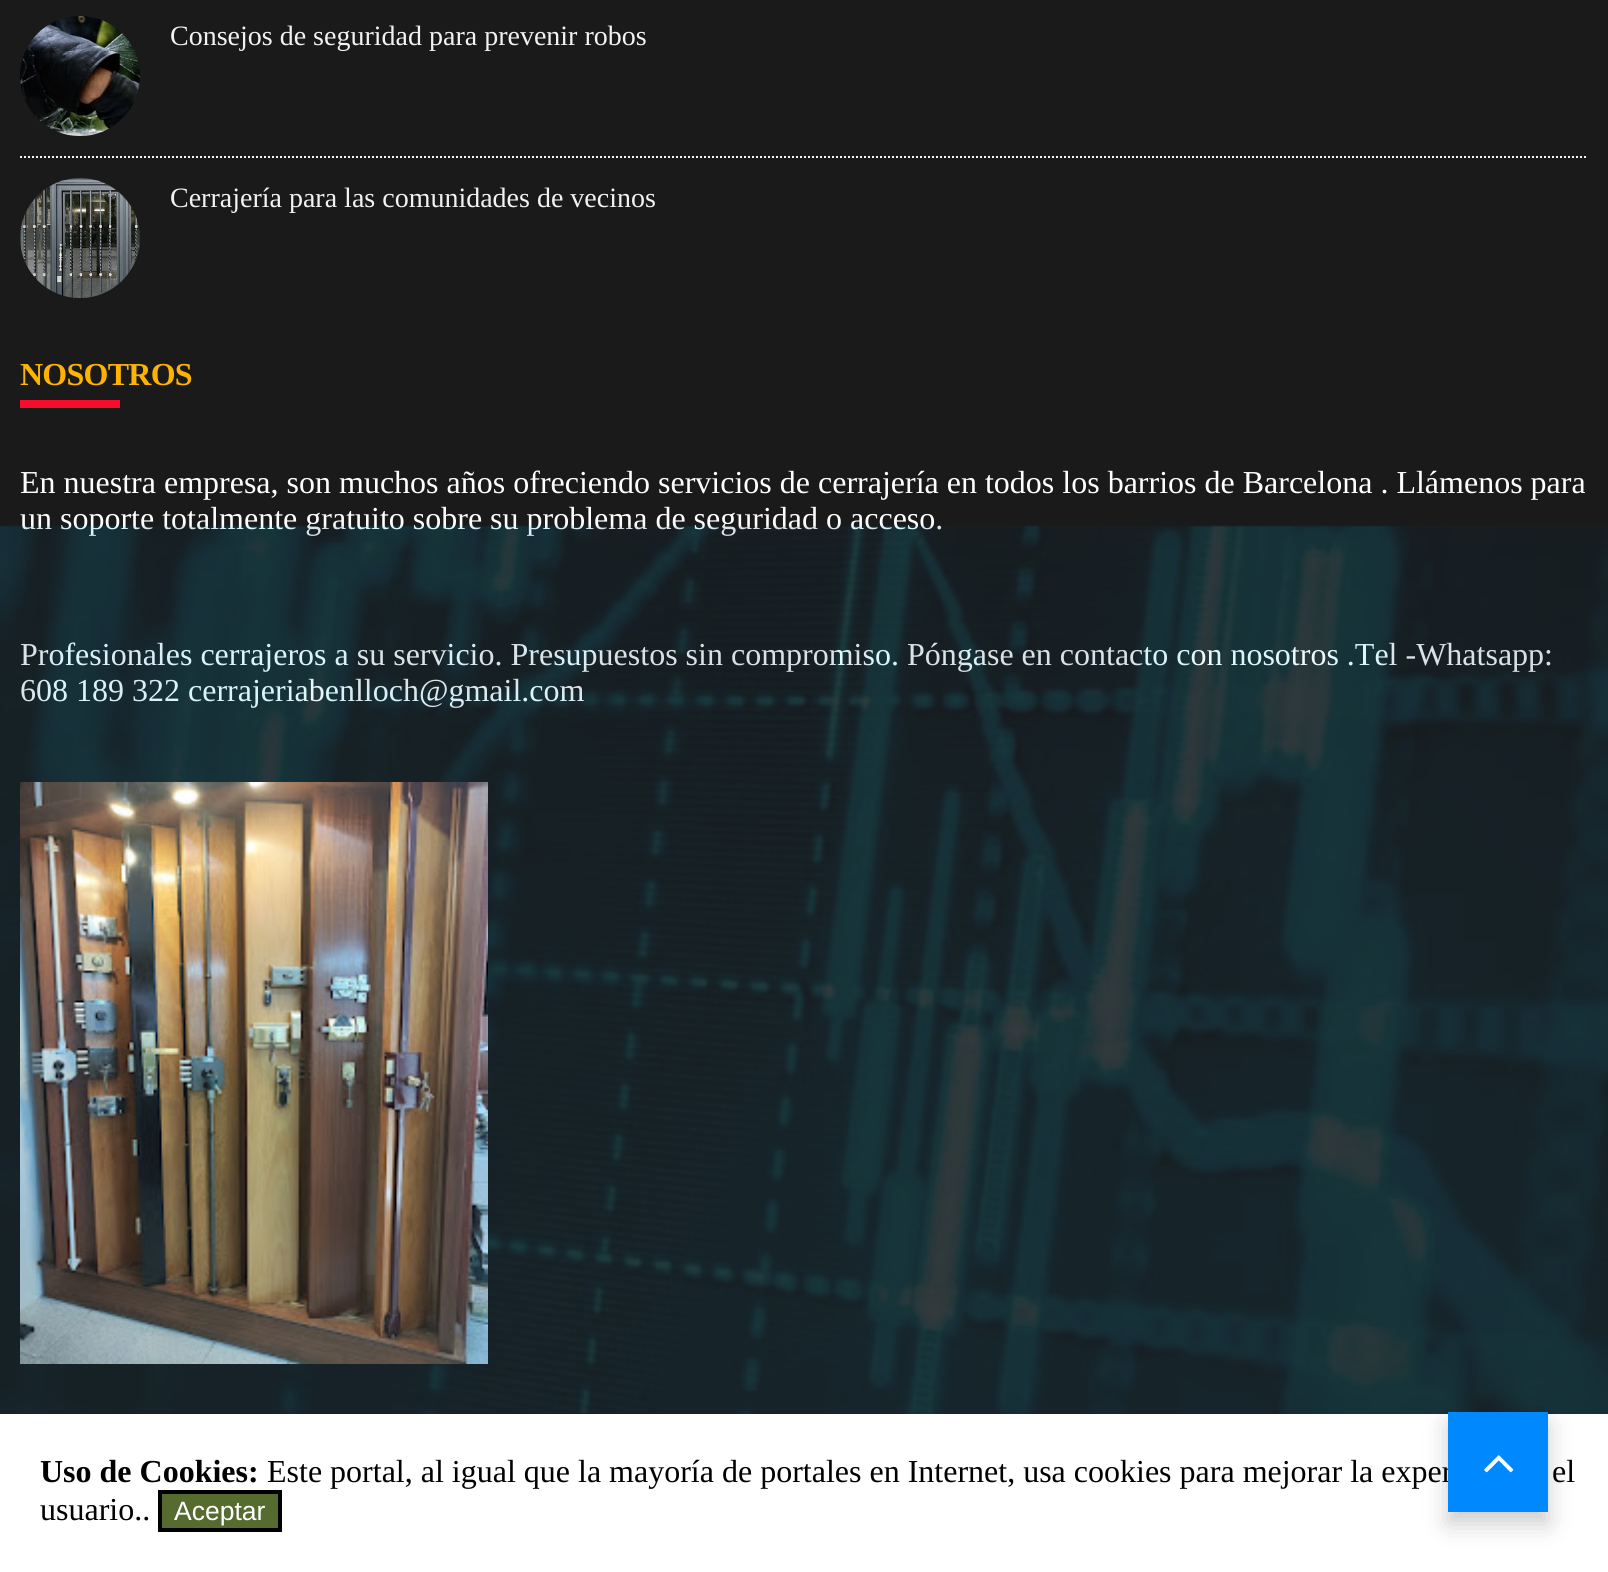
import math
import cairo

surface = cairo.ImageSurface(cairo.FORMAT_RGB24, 1608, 1572)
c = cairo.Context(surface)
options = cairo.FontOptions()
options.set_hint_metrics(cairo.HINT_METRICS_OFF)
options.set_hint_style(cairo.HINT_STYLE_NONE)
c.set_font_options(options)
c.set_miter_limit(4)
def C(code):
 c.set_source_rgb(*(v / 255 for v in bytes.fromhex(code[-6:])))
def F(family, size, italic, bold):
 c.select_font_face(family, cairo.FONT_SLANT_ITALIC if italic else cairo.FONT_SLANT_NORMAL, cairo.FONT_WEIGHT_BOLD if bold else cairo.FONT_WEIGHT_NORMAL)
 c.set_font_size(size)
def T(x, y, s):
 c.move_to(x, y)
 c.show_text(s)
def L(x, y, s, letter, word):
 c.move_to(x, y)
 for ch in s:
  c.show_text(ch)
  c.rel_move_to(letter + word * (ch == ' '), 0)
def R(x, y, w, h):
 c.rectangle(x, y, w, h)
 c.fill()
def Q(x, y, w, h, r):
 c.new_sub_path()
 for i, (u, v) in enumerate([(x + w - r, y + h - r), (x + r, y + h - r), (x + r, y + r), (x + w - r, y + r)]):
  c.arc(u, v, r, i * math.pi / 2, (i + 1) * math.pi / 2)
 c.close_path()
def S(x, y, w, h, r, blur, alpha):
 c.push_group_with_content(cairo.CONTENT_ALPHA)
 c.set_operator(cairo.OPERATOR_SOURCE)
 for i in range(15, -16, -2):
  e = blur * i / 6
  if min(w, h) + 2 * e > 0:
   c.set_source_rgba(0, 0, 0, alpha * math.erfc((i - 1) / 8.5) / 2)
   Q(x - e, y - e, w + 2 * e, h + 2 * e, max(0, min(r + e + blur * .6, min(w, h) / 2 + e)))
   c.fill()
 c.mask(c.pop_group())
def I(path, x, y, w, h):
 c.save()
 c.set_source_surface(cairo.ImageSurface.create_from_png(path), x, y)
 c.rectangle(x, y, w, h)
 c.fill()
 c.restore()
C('1a1a1a')
c.paint()
I('1.png',20,16,120,120)
F('Liberation Serif',28,0,0)
C('f2f2f2')
T(170,45,'Consejos de seguridad para prevenir robos')
c.new_path()
c.move_to(20,157)
c.line_to(1588,157)
C('f5f5f5')
c.set_dash([2,2])
c.stroke()
I('2.png',20,178,120,120)
C('f2f2f2')
T(170,207,'Cerrajería para las comunidades de vecinos')
F('Liberation Serif',32,0,1)
C('ffb300')
L(20,385,'NOSOTROS',-.75,0)
C('f60d2b')
R(20,400,100,8)
F('Liberation Serif',32,0,0)
C('ffffff')
T(20,493,'En nuestra empresa, son muchos años ofreciendo servicios de cerrajería en todos los barrios de Barcelona . Llámenos para')
T(20,529,'un soporte totalmente gratuito sobre su problema de seguridad o acceso.')
T(20,665,'Profesionales cerrajeros a su servicio. Presupuestos sin compromiso. Póngase en contacto con nosotros .Tel -Whatsapp:')
T(20,701,'608 189 322 cerrajeriabenlloch@gmail.com')
I('4.png',0,525,1608,889)
I('3.png',20,782,468,582)
R(0,1414,1608,158)
C('000000')
S(1448,1424,100,100,0,12,.2)
C('000000')
T(267,1482,'Este portal, al igual que la mayoría de portales en Internet, usa cookies para mejorar la exper')
C('0088ff')
R(1448,1412,100,100)
I('5.png',1484,1455,30,18)
F('Liberation Serif',32,0,1)
C('000000')
T(40,1482,'Uso de Cookies:')
F('Liberation Serif',32,0,0)
T(1552,1482,'el')
T(40,1520,'usuario..')
C('556b2f')
c.rectangle(160,1492,120,38)
c.fill_preserve()
C('000000')
c.set_line_width(4)
c.set_dash([])
c.stroke()
F('Liberation Sans',26.5,0,0)
C('ffffff')
T(174,1520,'Aceptar')
surface.write_to_png('o.png')
